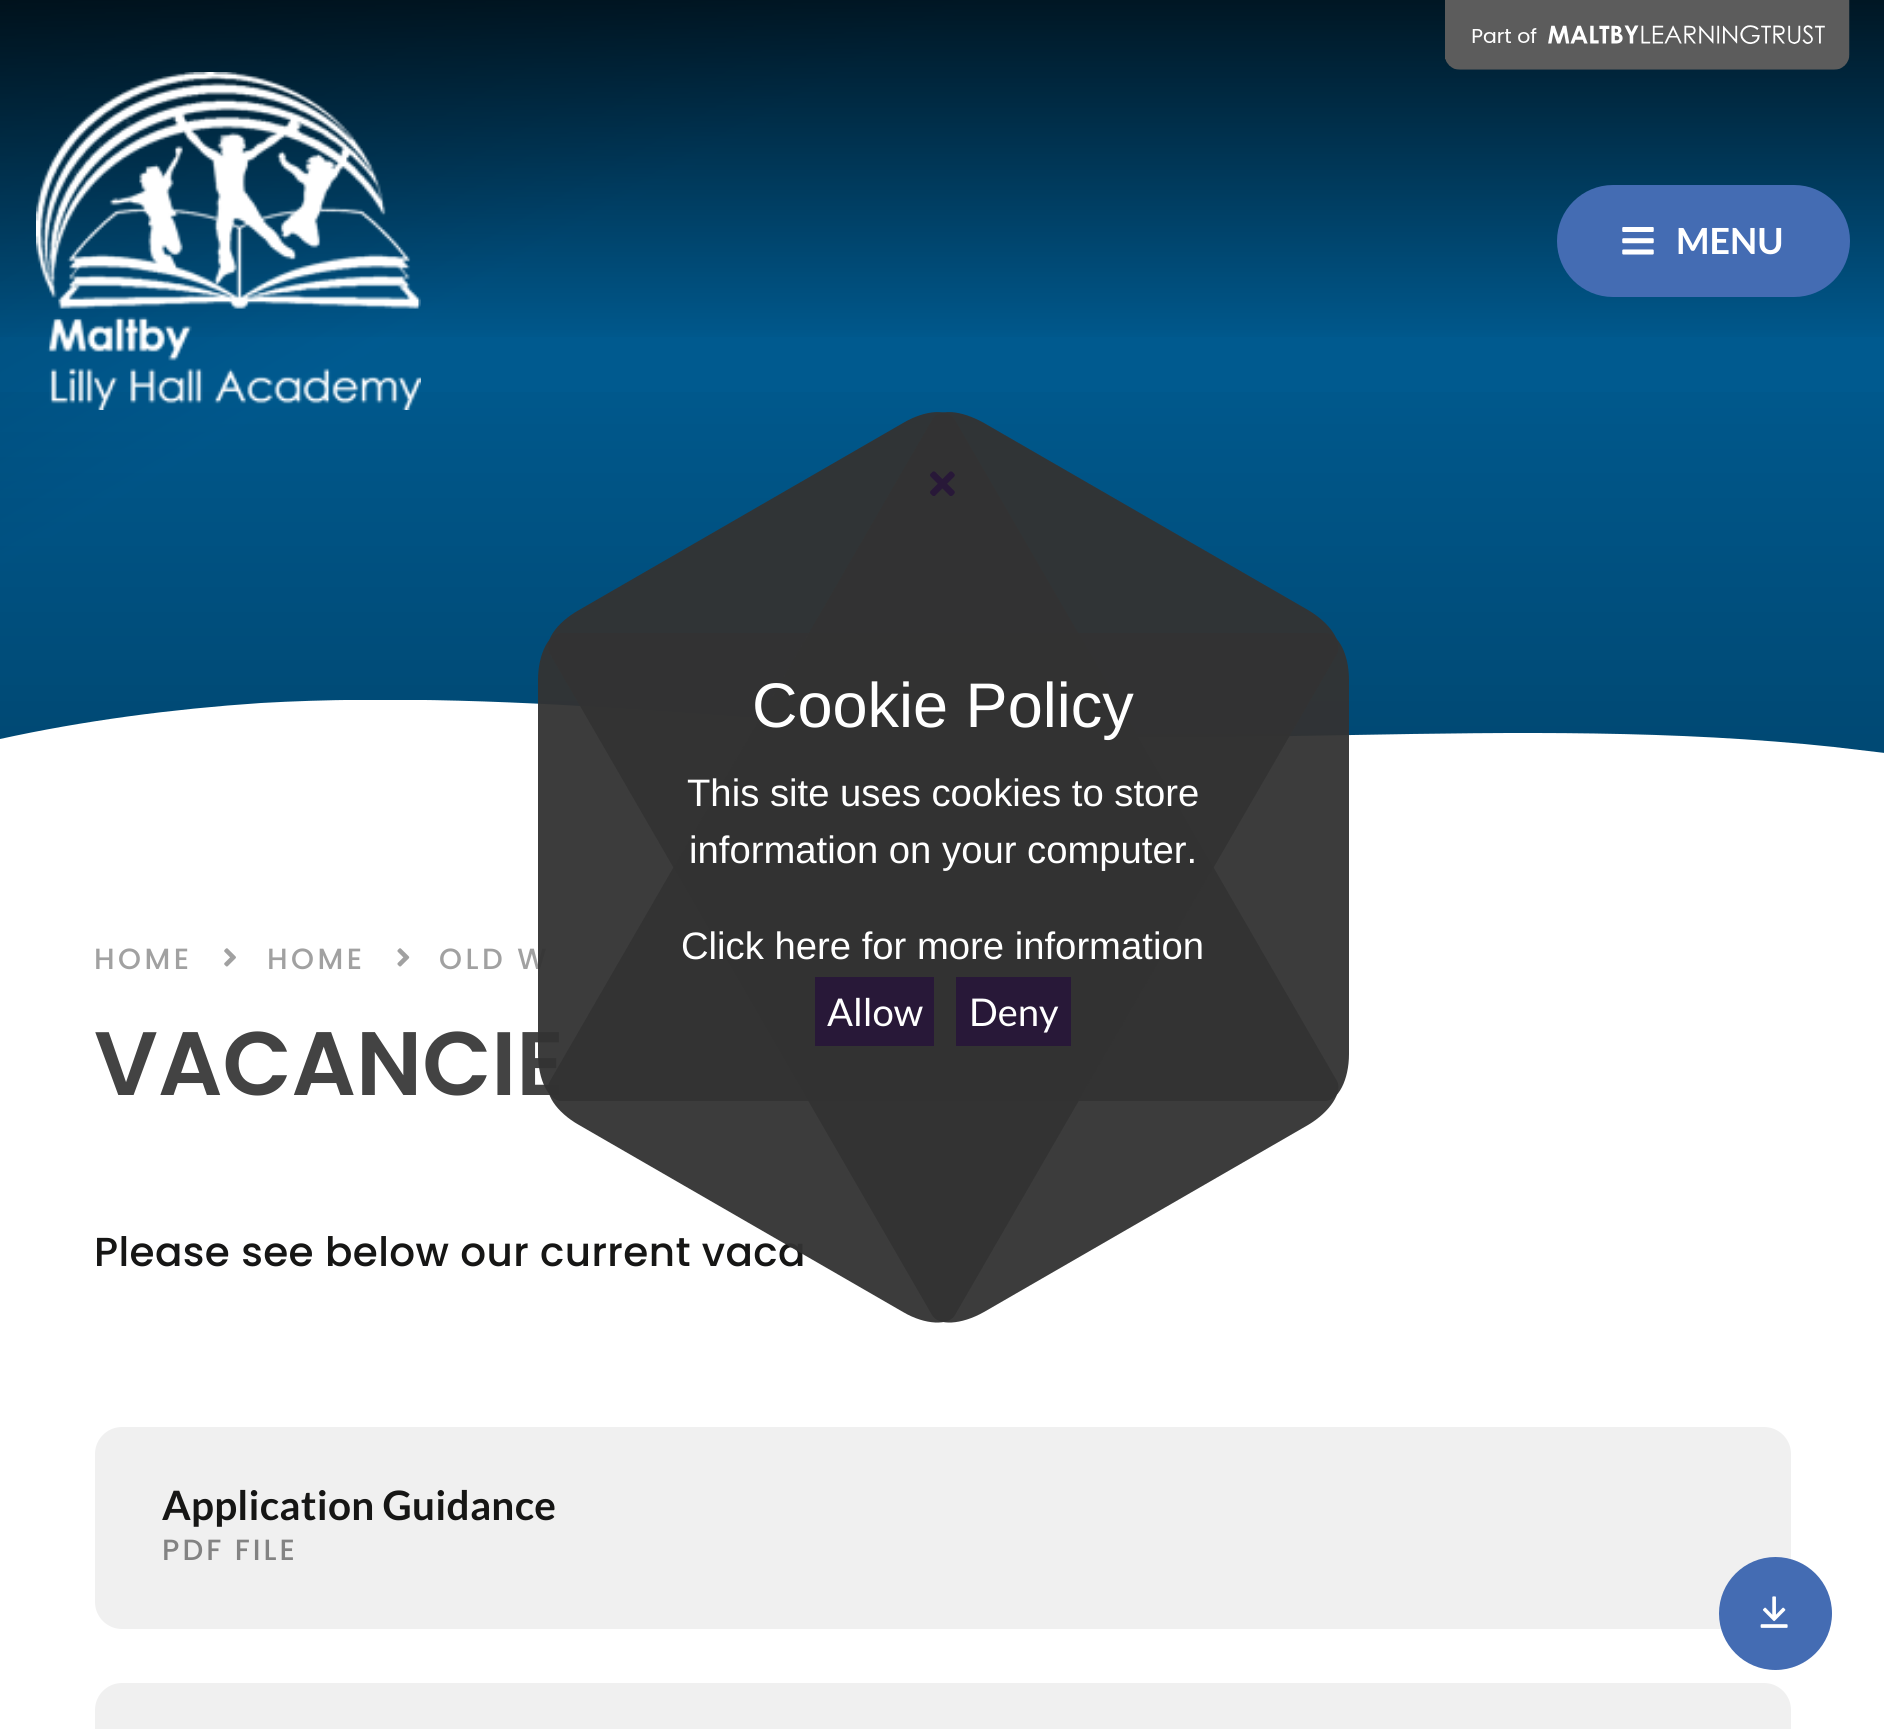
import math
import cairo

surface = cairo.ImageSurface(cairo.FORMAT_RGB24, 1884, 1729)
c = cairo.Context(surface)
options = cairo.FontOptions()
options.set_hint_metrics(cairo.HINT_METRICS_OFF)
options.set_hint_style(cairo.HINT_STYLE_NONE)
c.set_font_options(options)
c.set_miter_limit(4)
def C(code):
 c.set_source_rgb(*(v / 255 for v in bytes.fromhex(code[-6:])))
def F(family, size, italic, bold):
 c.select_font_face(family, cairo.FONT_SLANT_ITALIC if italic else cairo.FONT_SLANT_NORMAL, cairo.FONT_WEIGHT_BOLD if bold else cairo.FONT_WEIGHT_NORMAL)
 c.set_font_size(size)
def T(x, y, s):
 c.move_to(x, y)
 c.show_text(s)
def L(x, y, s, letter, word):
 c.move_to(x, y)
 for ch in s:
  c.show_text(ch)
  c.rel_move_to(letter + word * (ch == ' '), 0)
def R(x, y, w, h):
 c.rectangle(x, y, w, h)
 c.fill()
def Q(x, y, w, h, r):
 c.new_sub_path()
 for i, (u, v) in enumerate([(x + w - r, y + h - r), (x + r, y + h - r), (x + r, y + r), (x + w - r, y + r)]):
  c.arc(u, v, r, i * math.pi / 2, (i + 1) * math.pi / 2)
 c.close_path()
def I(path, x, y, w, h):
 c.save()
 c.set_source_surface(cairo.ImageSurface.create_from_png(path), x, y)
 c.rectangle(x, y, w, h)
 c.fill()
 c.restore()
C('ffffff')
c.paint()
C('005a8f')
R(0,0,1884,753)
gradient = cairo.LinearGradient(207,-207,490,283)
gradient.add_color_stop_rgba(0,0,0.267,0.424,1)
gradient.add_color_stop_rgba(1,0,0.353,0.565,1)
c.set_source(gradient)
c.new_path()
c.move_to(-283,76)
c.line_to(697,-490)
c.line_to(980,0)
c.line_to(0,566)
c.close_path()
c.fill()
gradient = cairo.LinearGradient(943,0,943,347)
gradient.add_color_stop_rgba(0,0,0,0,.75)
gradient.add_color_stop_rgba(1,0,0,0,0)
c.set_source(gradient)
R(0,0,1884,337)
gradient = cairo.LinearGradient(943,866,943,347)
gradient.add_color_stop_rgba(0,0,0,0,.25)
gradient.add_color_stop_rgba(1,0,0,0,0)
c.set_source(gradient)
R(0,392,1884,361)
c.save()
c.rectangle(0,700,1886,166)
c.clip()
C('ffffff')
c.new_path()
c.move_to(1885,867)
c.line_to(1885,753)
c.line_to(1834,747)
c.curve_to(1675,730,1515,732,1353,735)
c.curve_to(1254,737,1156,738,1056,736)
c.curve_to(792,728,524,688,261,703)
c.curve_to(171,709,82,721,0,739)
c.line_to(0,867)
c.close_path()
c.fill()
c.restore()
I('1.png',1445,0,405,70)
I('2.png',36,72,385,338)
C('446cb3')
Q(1557,185,293,112,56)
c.fill()
I('3.png',1622,227,32,28)
F('Lato',36,0,1)
C('ffffff')
T(1676,254,'MENU')
F('Poppins Medium',29.25,0,0)
C('a1a1a1')
L(94,969,'HOME',3.5,0)
I('4.png',224,948,12,19)
L(267,969,'HOME',3.5,0)
I('5.png',397,948,13,19)
L(439,969,'OLD W',3.5,0)
I('6.png',867,948,13,19)
F('Poppins SemiBold',90,0,0)
C('434343')
T(94,1095,'VACANCIE')
F('Poppins Medium',40.5,0,0)
C('161615')
L(94,1266,'Please see below our current vaca',.4,0)
C('f0f0f0')
Q(95,1427,1696,202,27)
c.fill()
F('Lato',40.5,0,1)
C('161615')
L(162,1520,'Application Guidance',.25,0)
F('Poppins Medium',29.25,0,0)
C('838383')
L(162,1560,'PDF FILE',3,0)
C('446cb3')
c.new_path()
c.arc(1775.5,1613.5,56.5,0,2 * math.pi)
c.fill()
I('7.png',1760,1596,28,32)
C('f0f0f0')
Q(95,1683,1696,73,27)
c.fill()
c.set_source_rgba(0.2,0.2,0.2,0.95)
c.new_path()
c.move_to(1349,680)
c.line_to(1349,1054)
c.curve_to(1349,1080,1338,1101,1325,1101)
c.line_to(561,1101)
c.curve_to(549,1101,538,1080,538,1054)
c.line_to(538,680)
c.curve_to(538,654,549,633,561,633)
c.line_to(1325,633)
c.curve_to(1338,633,1349,654,1349,680)
c.close_path()
c.fill()
c.new_path()
c.move_to(1308,1125)
c.line_to(984,1312)
c.curve_to(961,1325,938,1326,932,1315)
c.line_to(550,654)
c.curve_to(543,642,556,623,579,610)
c.line_to(903,423)
c.curve_to(925,410,949,408,955,420)
c.line_to(1337,1081)
c.curve_to(1343,1092,1330,1112,1308,1125)
c.close_path()
c.fill()
c.new_path()
c.move_to(984,423)
c.line_to(1308,610)
c.curve_to(1330,623,1343,642,1337,654)
c.line_to(955,1315)
c.curve_to(949,1326,925,1325,903,1312)
c.line_to(579,1125)
c.curve_to(556,1112,543,1092,550,1081)
c.line_to(932,420)
c.curve_to(938,408,961,410,984,423)
c.close_path()
c.fill()
I('8.png',930,471,25,25)
F('Liberation Sans',63,0,0)
C('ffffff')
T(752,727,'Cookie Policy')
F('Liberation Sans',38.25,0,0)
T(687,806,'This site uses cookies to store')
T(689,863,'information on your computer.')
T(681,959,'Click here for more information')
C('281838')
R(815,977,119,69)
F('Lato',38.25,0,0)
C('ffffff')
T(827,1026,'Allow')
C('281838')
R(956,977,115,69)
C('ffffff')
T(969,1026,'Deny')
surface.write_to_png('o.png')
